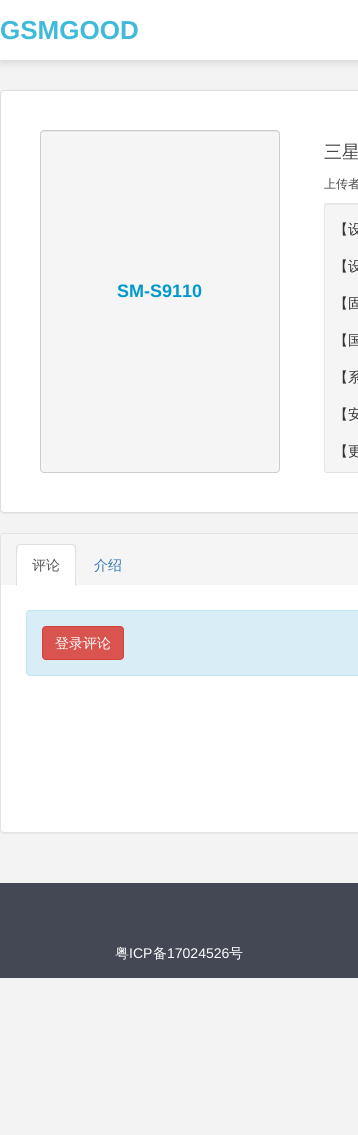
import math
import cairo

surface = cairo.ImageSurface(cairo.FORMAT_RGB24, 358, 1135)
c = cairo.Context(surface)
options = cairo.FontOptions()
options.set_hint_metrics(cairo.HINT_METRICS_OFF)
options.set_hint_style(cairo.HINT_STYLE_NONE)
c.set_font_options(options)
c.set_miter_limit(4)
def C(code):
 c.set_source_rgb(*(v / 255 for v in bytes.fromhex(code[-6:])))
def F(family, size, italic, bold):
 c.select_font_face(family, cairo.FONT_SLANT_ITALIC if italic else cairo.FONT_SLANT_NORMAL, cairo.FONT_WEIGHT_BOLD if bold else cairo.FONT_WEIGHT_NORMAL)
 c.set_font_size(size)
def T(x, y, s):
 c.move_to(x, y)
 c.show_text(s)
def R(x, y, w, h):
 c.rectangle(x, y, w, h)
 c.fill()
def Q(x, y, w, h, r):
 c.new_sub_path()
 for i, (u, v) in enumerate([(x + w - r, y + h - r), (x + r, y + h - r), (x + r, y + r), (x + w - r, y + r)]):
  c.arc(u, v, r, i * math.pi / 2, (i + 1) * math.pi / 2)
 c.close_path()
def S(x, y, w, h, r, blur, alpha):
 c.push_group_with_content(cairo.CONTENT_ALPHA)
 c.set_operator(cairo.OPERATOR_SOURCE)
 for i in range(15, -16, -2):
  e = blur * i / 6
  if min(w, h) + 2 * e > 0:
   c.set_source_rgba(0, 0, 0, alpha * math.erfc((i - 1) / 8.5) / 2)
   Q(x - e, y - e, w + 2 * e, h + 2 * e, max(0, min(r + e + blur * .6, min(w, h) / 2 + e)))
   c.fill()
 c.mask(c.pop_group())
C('f3f3f3')
c.paint()
C('cccccc')
S(1,1,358,60,0,5,1)
C('ffffff')
R(0,0,358,60)
F('Liberation Sans',26,0,1)
C('3fbad9')
T(0,39,'GSMGOOD')
C('000000')
S(0,91,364,423,4,.5,.05)
C('ffffff')
Q(.5,90.5,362,422,3.5)
c.fill_preserve()
C('dddddd')
c.set_line_width(1)
c.stroke()
C('f5f5f5')
Q(40,130,240,343,4)
c.fill()
C('e9e9e9')
c.new_path()
c.move_to(44,132)
c.line_to(277,132)
c.line_to(279,133)
c.line_to(279,135)
c.curve_to(279,133,278,131,276,131)
c.line_to(44,131)
c.curve_to(42,131,41,133,41,135)
c.curve_to(41,133,42,132,44,132)
c.close_path()
c.fill()
Q(40.5,130.5,239,342,3.5)
C('cccccc')
c.stroke()
F('Liberation Sans',18,0,1)
C('0099cc')
T(117,297,'SM-S9110')
F('WenQuanYi Zen Hei Medium',18,0,0)
C('444444')
T(324,158,'三星')
F('WenQuanYi Zen Hei Medium',12,0,0)
T(324,188,'上传者')
C('f5f5f5')
Q(324,203,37,270,3)
c.fill()
C('e9e9e9')
c.new_path()
c.move_to(327,205)
c.line_to(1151,205)
c.curve_to(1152,205,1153,206,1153,207)
c.curve_to(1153,206,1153,204,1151,204)
c.line_to(327,204)
c.curve_to(325,204,325,206,325,207)
c.curve_to(325,206,326,205,327,205)
c.close_path()
c.fill()
Q(324.5,203.5,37,269,2.5)
C('e3e3e3')
c.stroke()
F('WenQuanYi Zen Hei Medium',14,0,0)
C('333333')
T(334,234,'【设')
T(334,271,'【设')
T(334,308,'【固')
T(334,345,'【国')
T(334,382,'【系')
T(334,419,'【安')
T(334,456,'【更')
C('000000')
S(0,534,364,300,4,.5,.05)
C('ffffff')
Q(.5,533.5,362,299,3.5)
c.fill_preserve()
C('e3e3e3')
c.stroke()
C('f5f5f5')
c.new_path()
c.move_to(4,534)
c.line_to(358,534)
c.curve_to(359.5,534,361,535.5,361,537)
c.line_to(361,585)
c.line_to(1,585)
c.line_to(1,537)
c.curve_to(1,535.5,2.5,534,4,534)
c.close_path()
c.fill()
C('ffffff')
c.new_path()
c.move_to(20,544)
c.line_to(72,544)
c.curve_to(74,544,76,546,76,548)
c.line_to(76,586)
c.line_to(16,586)
c.line_to(16,548)
c.curve_to(16,546,18,544,20,544)
c.close_path()
c.fill()
C('dddddd')
c.new_path()
c.move_to(20,544)
c.line_to(17,545)
c.line_to(18,546)
c.line_to(19,545)
c.line_to(72,545)
c.line_to(74,546)
c.line_to(75,545)
c.line_to(72,544)
c.close_path()
c.fill()
c.new_path()
c.move_to(76,586)
c.line_to(76,548)
c.curve_to(76,547,76,546,75,545)
c.line_to(74,546)
c.curve_to(76,548,75,580,75,585)
c.close_path()
c.move_to(16,586)
c.line_to(17,585)
c.curve_to(17,580,16,548,18,546)
c.line_to(17,545)
c.line_to(16,548)
c.close_path()
c.fill()
C('555555')
T(32,570,'评论')
C('337ab7')
T(94,570,'介绍')
C('d9edf7')
Q(26.5,610.5,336,65,3.5)
c.fill_preserve()
C('bce8f1')
c.stroke()
C('d9534f')
Q(42.5,626.5,81,33,3.5)
c.fill_preserve()
C('d43f3a')
c.stroke()
C('ffffff')
T(55,648,'登录评论')
C('444855')
R(0,883,358,95)
C('ffffff')
T(115,958,'粤')
F('Liberation Sans',14,0,0)
T(129,958,'ICP')
F('WenQuanYi Zen Hei Medium',14,0,0)
T(153,958,'备')
F('Liberation Sans',14,0,0)
T(167,958,'17024526')
F('WenQuanYi Zen Hei Medium',14,0,0)
T(229,958,'号')
surface.write_to_png('o.png')
